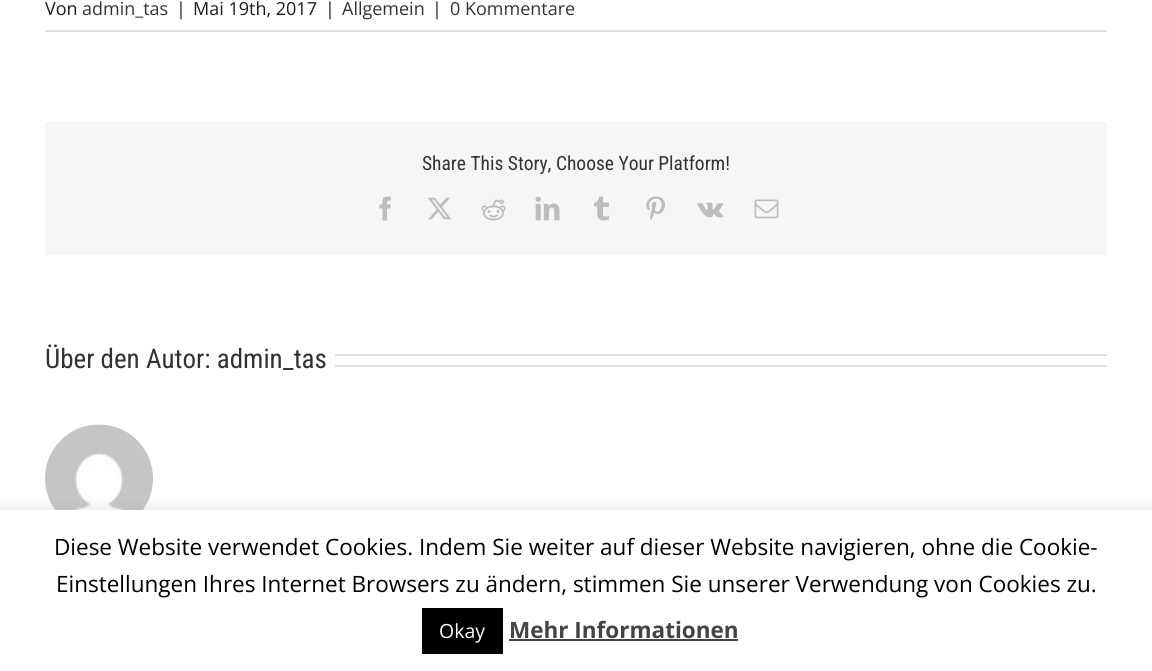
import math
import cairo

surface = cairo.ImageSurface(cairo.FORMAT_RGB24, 1152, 671)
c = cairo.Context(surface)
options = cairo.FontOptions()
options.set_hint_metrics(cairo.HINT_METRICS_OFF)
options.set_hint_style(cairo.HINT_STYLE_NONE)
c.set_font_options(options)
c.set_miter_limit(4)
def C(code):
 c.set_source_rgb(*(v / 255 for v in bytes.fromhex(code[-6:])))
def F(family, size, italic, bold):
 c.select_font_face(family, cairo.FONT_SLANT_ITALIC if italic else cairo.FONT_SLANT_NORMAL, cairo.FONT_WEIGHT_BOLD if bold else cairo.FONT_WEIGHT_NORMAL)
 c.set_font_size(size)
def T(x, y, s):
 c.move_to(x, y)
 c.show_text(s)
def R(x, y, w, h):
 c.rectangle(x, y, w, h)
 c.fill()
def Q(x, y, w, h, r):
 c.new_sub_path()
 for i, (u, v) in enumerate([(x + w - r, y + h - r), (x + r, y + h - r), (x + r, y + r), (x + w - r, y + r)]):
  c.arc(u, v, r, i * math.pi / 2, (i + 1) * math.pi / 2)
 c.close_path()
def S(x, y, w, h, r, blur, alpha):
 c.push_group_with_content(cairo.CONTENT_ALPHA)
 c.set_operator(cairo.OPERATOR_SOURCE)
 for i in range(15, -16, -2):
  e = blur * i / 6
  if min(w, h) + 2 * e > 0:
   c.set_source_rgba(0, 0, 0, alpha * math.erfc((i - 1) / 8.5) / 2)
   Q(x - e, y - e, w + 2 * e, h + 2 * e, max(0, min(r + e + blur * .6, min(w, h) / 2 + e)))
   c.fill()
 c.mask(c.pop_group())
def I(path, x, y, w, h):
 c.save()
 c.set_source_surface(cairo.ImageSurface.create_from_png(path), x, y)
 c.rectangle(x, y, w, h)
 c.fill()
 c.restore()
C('ffffff')
c.paint()
C('e0dede')
R(45,30,1062,2)
F('Open Sans',18,0,0)
C('1c1c1c')
T(45,15,'Von')
C('333333')
T(82,15,'admin_tas')
C('1c1c1c')
T(176,15,'|')
T(193,15,'Mai 19th, 2017')
T(325,15,'|')
C('333333')
T(342,15,'Allgemein')
C('1c1c1c')
T(432,15,'|')
C('333333')
T(450,15,'0 Kommentare')
C('f6f6f6')
R(45,122,1062,133)
F('Roboto Condensed',19.5,0,0)
C('333333')
T(422,170,'Share This Story, Choose Your Platform!')
I('1.png',379,196,12,25)
I('2.png',427,197,25,23)
I('3.png',481,199,25,22)
I('4.png',535,196,25,25)
I('5.png',594,196,15,25)
I('6.png',646,196,19,25)
I('7.png',697,202,27,16)
I('8.png',754,199,25,20)
F('Roboto Condensed',27,0,0)
T(45,368,'Über den Autor: admin_tas')
C('e0dede')
R(335,354,772,2)
R(335,365,772,2)
I('9.png',45,424,108,86)
C('acabab')
S(0,509,1152,162,0,7.5,.3)
C('ffffff')
R(0,510,1152,161)
F('Open Sans',22.5,0,0)
C('000000')
T(54,555,'Diese Website verwendet Cookies. Indem Sie weiter auf dieser Website navigieren, ohne die Cookie-')
T(56,592,'Einstellungen Ihres Internet Browsers zu ändern, stimmen Sie unserer Verwendung von Cookies zu.')
R(422,608,81,46)
F('Open Sans',19.5,0,0)
C('ffffff')
T(439,638,'Okay')
F('Open Sans',22.5,0,1)
C('444444')
T(509,638,'Mehr Informationen')
R(509,639,229,2)
surface.write_to_png('o.png')
